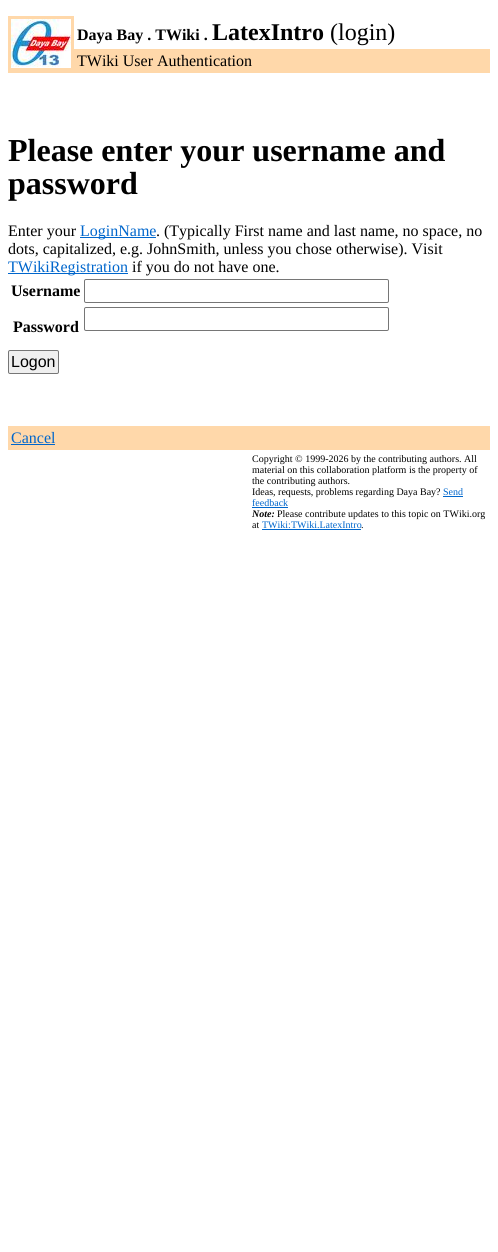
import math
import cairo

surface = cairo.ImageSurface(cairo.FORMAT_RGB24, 498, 1252)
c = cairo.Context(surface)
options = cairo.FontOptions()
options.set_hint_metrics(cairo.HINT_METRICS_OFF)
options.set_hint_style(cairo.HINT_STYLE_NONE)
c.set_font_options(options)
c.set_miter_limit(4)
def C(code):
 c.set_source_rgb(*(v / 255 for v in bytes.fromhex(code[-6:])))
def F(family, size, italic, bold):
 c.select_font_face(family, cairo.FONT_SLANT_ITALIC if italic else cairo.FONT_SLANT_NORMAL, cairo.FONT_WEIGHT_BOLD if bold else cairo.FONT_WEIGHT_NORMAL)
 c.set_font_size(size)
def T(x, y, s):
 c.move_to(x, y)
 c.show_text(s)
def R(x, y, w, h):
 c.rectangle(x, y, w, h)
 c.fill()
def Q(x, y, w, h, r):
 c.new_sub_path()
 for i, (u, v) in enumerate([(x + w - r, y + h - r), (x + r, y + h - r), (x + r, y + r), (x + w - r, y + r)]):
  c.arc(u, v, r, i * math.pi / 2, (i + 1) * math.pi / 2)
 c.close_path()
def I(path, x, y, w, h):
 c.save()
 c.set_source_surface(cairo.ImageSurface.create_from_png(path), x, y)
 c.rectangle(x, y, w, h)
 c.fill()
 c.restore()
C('ffffff')
c.paint()
C('ffd8aa')
R(8,16,66,33)
R(8,49,482,24)
I('1.png',11,19,60,49)
F('Liberation Serif',16,0,1)
C('000000')
T(77,40,'Daya Bay . TWiki .')
F('Liberation Serif',24,0,1)
T(212,40,'LatexIntro')
F('Liberation Serif',24,0,0)
T(330,40,'(login)')
F('Liberation Serif',16,0,0)
T(77,66,'TWiki User Authentication')
F('Liberation Serif',32,0,1)
T(8,161,'Please enter your username and')
T(8,194,'password')
F('Liberation Serif',16,0,0)
T(8,236,'Enter your')
C('0066cc')
R(80,237,76,1)
T(80,236,'LoginName')
C('000000')
T(156,236,'. (Typically First name and last name, no space, no')
T(8,254,'dots, capitalized, e.g. JohnSmith, unless you chose otherwise). Visit')
C('0066cc')
R(8,273,120,1)
T(8,272,'TWikiRegistration')
C('000000')
T(132,272,'if you do not have one.')
F('Liberation Serif',16,0,1)
T(11,296,'Username')
Q(84.5,279.5,304,23,1.5)
C('767676')
c.set_line_width(1)
c.stroke()
C('000000')
T(13,332,'Password')
Q(84.5,307.5,304,23,1.5)
C('767676')
c.stroke()
C('efefef')
Q(8.5,350.5,50,23,1.5)
c.fill_preserve()
C('767676')
c.stroke()
F('Liberation Sans',16,0,0)
C('000000')
T(11,367,'Logon')
C('ffd8aa')
R(8,426,482,24)
F('Liberation Serif',16,0,0)
C('0066cc')
T(11,443,'Cancel')
R(11,444,44,1)
F('Liberation Serif',10,0,0)
C('000000')
T(252,462,'Copyright © 1999-2026 by the contributing authors. All')
T(252,473,'material on this collaboration platform is the property of')
T(252,484,'the contributing authors.')
T(252,495,'Ideas, requests, problems regarding Daya Bay?')
C('0066cc')
R(443,496,20,1)
T(443,495,'Send')
T(252,506,'feedback')
R(252,507,36,1)
F('Liberation Serif',10,1,1)
C('000000')
T(252,517,'Note:')
F('Liberation Serif',10,0,0)
T(277,517,'Please contribute updates to this topic on TWiki.org')
T(252,528,'at')
C('0066cc')
T(262,528,'TWiki:TWiki.LatexIntro')
C('000000')
T(361,528,'.')
C('0066cc')
R(262,529,99,1)
surface.write_to_png('o.png')
